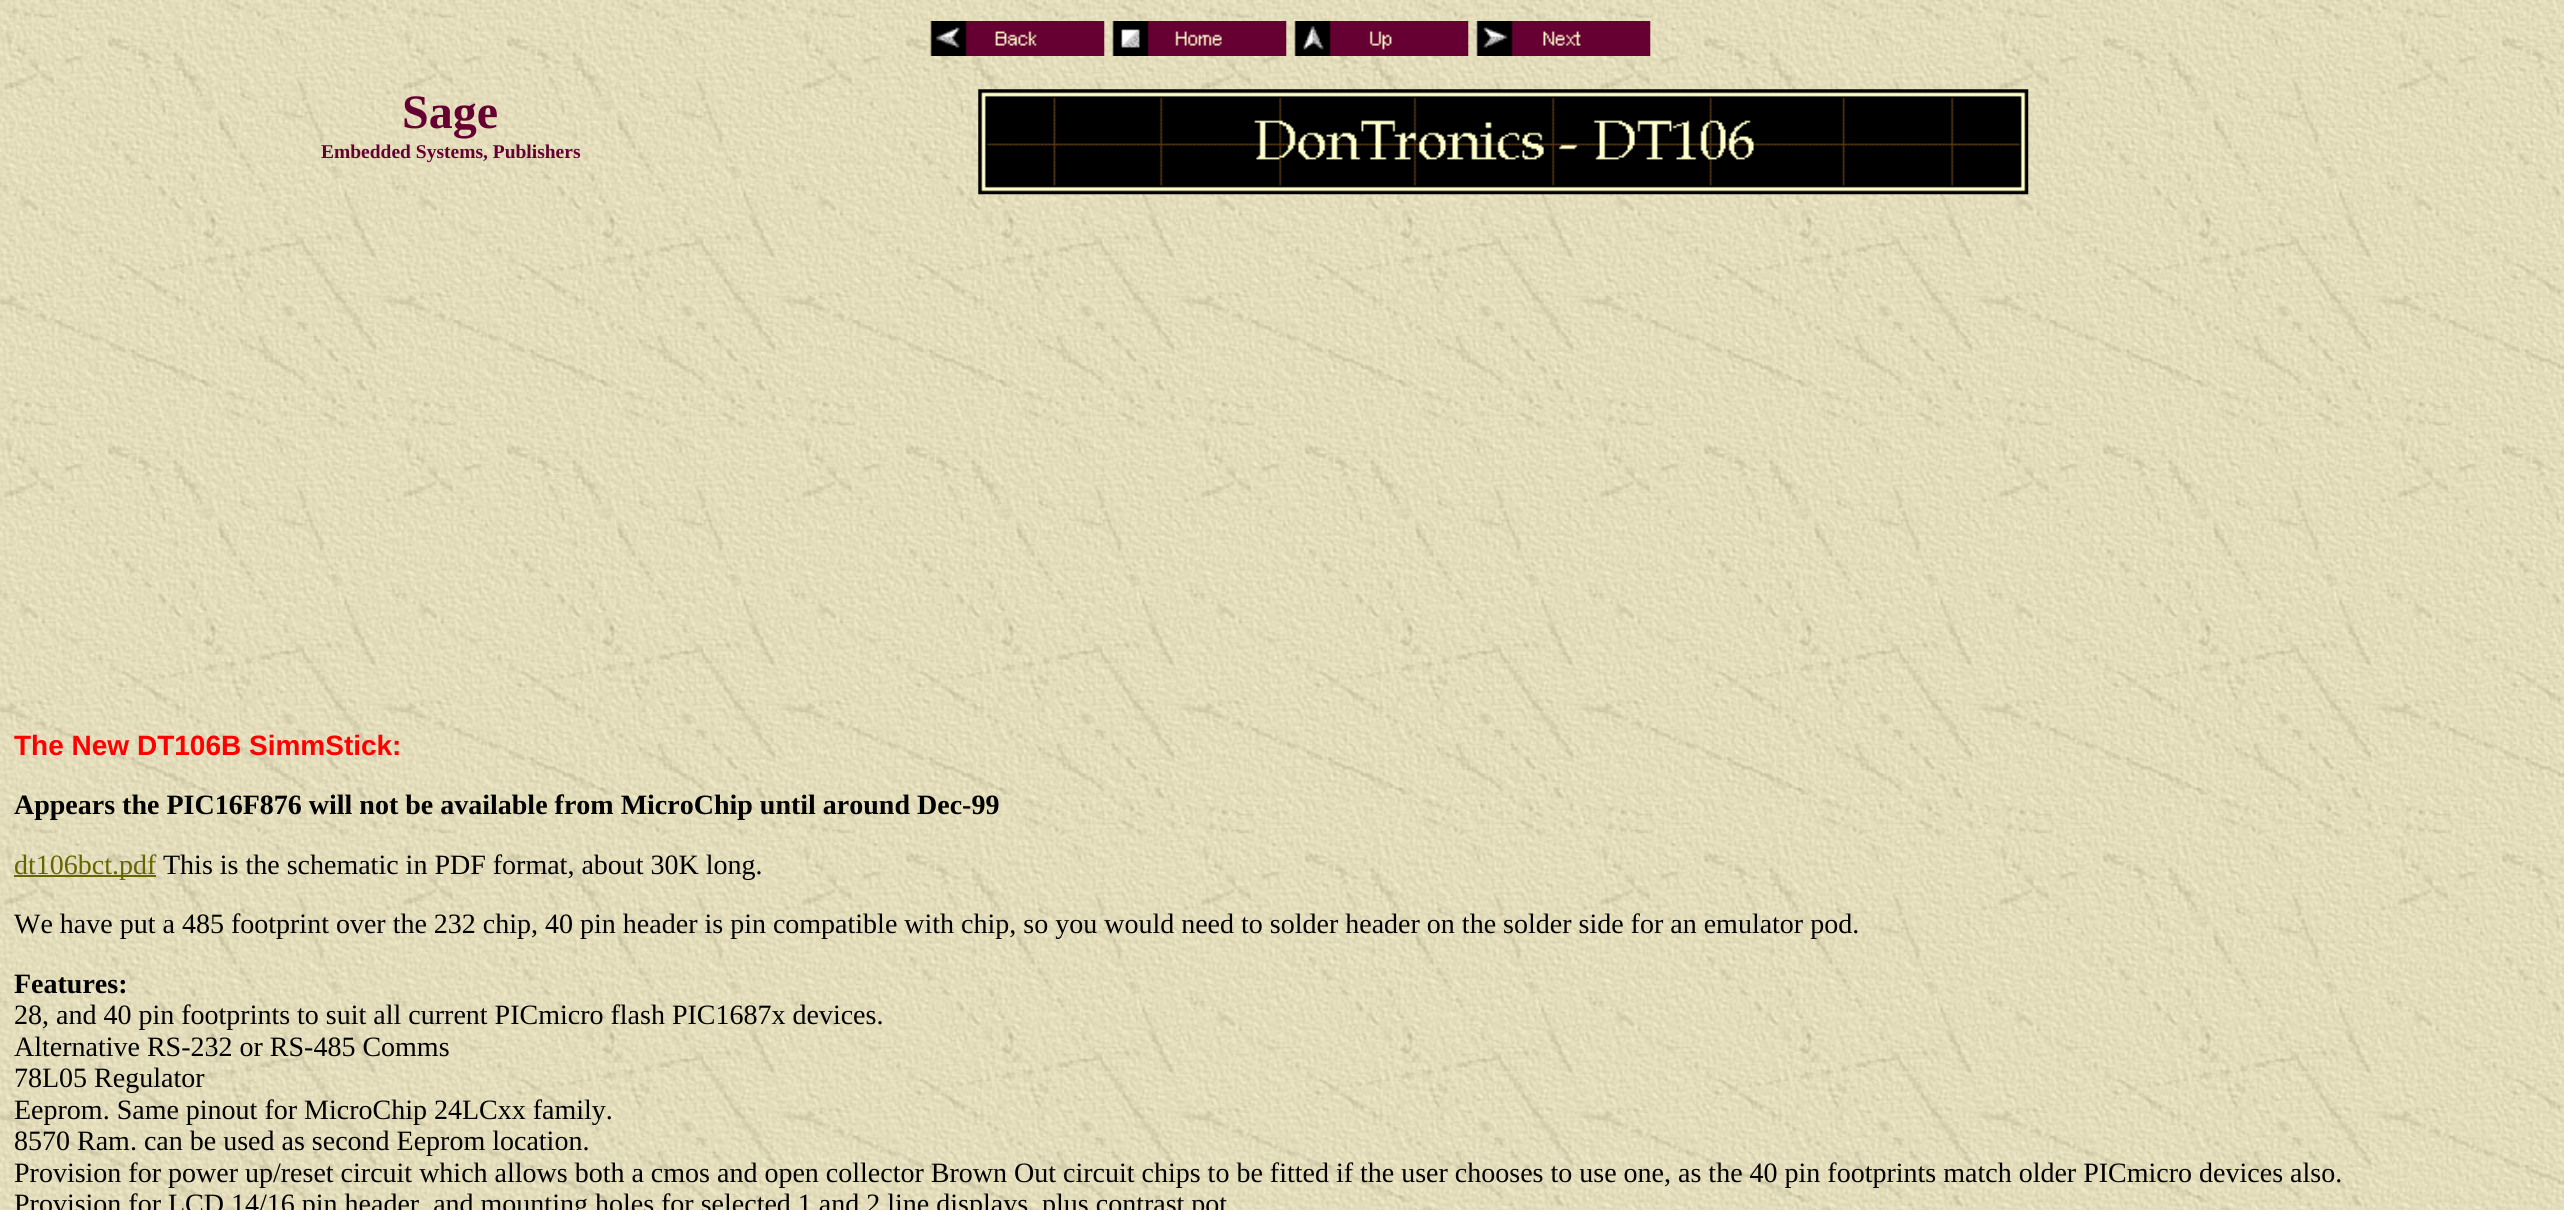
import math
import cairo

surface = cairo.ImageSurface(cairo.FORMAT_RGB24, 2564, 1210)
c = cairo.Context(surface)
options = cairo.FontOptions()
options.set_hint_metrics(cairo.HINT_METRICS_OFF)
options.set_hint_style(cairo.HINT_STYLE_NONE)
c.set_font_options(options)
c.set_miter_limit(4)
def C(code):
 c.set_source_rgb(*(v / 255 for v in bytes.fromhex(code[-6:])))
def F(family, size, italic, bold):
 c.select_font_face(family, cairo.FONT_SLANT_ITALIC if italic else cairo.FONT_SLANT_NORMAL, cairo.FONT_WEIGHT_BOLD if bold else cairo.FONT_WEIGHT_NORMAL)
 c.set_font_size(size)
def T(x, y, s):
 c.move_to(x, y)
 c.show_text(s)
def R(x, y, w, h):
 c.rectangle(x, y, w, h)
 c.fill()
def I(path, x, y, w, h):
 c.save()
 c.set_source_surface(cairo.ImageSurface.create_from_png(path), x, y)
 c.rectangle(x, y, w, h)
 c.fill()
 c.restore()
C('ffffff')
c.paint()
I('1.png',0,0,2564,1210)
I('2.png',930,21,175,35)
I('3.png',1112,21,175,35)
I('4.png',1294,21,175,35)
I('5.png',1476,21,175,35)
F('Liberation Serif',48,0,1)
C('660033')
T(402,128,'Sage')
F('Liberation Serif',19.5,0,1)
T(321,158,'Embedded Systems, Publishers')
I('6.png',978,89,1051,106)
F('Liberation Sans',28,0,1)
C('ff0000')
T(14,755,'The New DT106B SimmStick:')
F('Liberation Serif',28,0,1)
C('000000')
T(14,814,'Appears the PIC16F876 will not be available from MicroChip until around Dec-99')
C('666600')
R(14,875,142,2)
F('Liberation Serif',28,0,0)
T(14,874,'dt106bct.pdf')
C('000000')
T(163,874,'This is the schematic in PDF format, about 30K long.')
T(14,933,'We have put a 485 footprint over the 232 chip, 40 pin header is pin compatible with chip, so you would need to solder header on the solder side for an emulator pod.')
F('Liberation Serif',28,0,1)
T(14,993,'Features:')
F('Liberation Serif',28,0,0)
T(14,1024,'28, and 40 pin footprints to suit all current PICmicro flash PIC1687x devices.')
T(14,1056,'Alternative RS-232 or RS-485 Comms')
T(14,1087,'78L05 Regulator')
T(14,1119,'Eeprom. Same pinout for MicroChip 24LCxx family.')
T(14,1150,'8570 Ram. can be used as second Eeprom location.')
T(14,1182,'Provision for power up/reset circuit which allows both a cmos and open collector Brown Out circuit chips to be fitted if the user chooses to use one, as the 40 pin footprints match older PICmicro devices also.')
T(14,1213,'Provision for LCD 14/16 pin header, and mounting holes for selected 1 and 2 line displays, plus contrast pot')
surface.write_to_png('o.png')
